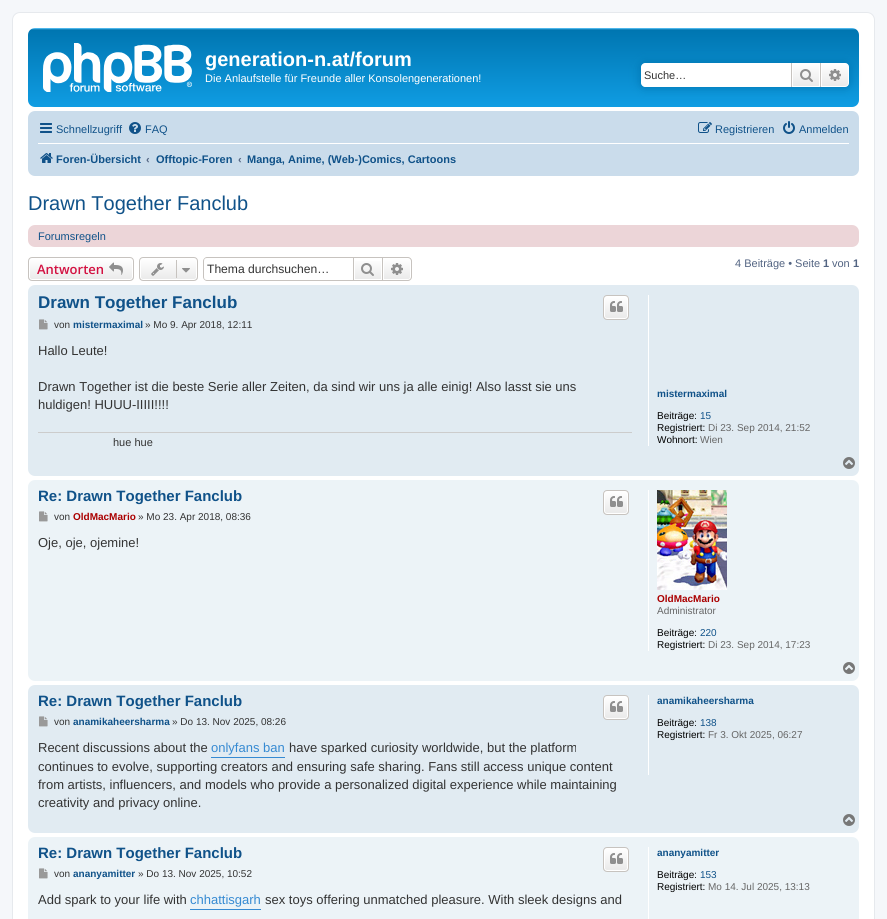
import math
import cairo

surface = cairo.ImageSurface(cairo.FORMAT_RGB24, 887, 919)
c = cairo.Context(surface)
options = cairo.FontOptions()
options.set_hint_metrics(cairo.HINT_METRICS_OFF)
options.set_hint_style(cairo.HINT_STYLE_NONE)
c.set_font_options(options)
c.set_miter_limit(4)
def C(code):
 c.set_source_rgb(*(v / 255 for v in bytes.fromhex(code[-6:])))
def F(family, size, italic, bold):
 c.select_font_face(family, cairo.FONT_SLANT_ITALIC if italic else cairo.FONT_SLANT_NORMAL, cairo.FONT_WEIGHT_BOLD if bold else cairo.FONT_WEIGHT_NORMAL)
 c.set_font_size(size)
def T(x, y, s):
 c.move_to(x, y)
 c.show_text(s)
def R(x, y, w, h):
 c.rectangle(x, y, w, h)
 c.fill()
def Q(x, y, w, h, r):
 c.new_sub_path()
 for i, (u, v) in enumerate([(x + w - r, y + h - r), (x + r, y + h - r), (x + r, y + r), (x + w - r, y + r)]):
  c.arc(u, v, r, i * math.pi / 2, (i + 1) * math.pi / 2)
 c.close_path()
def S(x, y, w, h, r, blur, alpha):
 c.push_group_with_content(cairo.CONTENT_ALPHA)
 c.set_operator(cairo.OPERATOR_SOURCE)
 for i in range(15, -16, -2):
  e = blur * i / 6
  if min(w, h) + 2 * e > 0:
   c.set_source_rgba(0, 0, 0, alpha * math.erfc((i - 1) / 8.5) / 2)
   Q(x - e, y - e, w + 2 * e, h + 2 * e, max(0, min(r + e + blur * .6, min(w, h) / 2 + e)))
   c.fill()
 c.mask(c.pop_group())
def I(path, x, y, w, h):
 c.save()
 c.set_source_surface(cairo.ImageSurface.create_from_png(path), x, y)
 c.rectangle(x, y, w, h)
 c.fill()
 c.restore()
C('f5f7fa')
c.paint()
C('ffffff')
Q(12.5,12.5,862,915,7.5)
c.fill_preserve()
C('e6e9ed')
c.set_line_width(1)
c.stroke()
gradient = cairo.LinearGradient(444,28,444,120)
gradient.add_color_stop_rgba(0,0.416,0.808,1,1)
gradient.add_color_stop_rgba(.02,0,0.463,0.694,1)
gradient.add_color_stop_rgba(1,0.071,0.639,0.922,1)
c.set_source(gradient)
Q(28,28,831,79,7)
c.fill()
I('1.png',43,43,149,49)
F('Liberation Sans',20,0,1)
C('ffffff')
T(205,66,'generation-n.at/forum')
F('Liberation Sans',11,0,0)
T(205,82,'Die Anlaufstelle für Freunde aller Konsolengenerationen!')
C('0075b0')
S(641,63,208,24,4,5,1)
C('ffffff')
c.new_path()
c.move_to(645,63)
c.line_to(791,63)
c.line_to(791,87)
c.line_to(645,87)
c.curve_to(643,87,641,85,641,83)
c.line_to(641,67)
c.curve_to(641,65,643,63,645,63)
c.close_path()
c.fill()
C('333333')
T(644,79,'Suche…')
gradient = cairo.LinearGradient(806,63,806,87)
gradient.add_color_stop_rgba(0,1,1,1,1)
gradient.add_color_stop_rgba(1,0.914,0.914,0.914,1)
c.set_source(gradient)
R(793,64,26,22)
c.rectangle(792.5,63.5,27,23)
C('ffffff')
c.stroke()
C('c7c3bf')
R(820,63,1,24)
R(791,63,1,24)
I('2.png',800,69,13,13)
gradient = cairo.LinearGradient(835,63,835,87)
gradient.add_color_stop_rgba(0,1,1,1,1)
gradient.add_color_stop_rgba(1,0.914,0.914,0.914,1)
c.set_source(gradient)
c.new_path()
c.move_to(821.5,63.5)
c.line_to(845,63.5)
c.curve_to(847,63.5,848.5,65,848.5,67)
c.line_to(848.5,83)
c.curve_to(848.5,85,847,86.5,845,86.5)
c.line_to(821.5,86.5)
c.close_path()
c.fill_preserve()
C('ffffff')
c.stroke()
I('3.png',829,69,12,12)
C('cadceb')
Q(28,111,831,65,7)
c.fill()
I('4.png',40,123,12,10)
C('105289')
T(56,133,'Schnellzugriff')
I('5.png',129,122,12,12)
T(145,133,'FAQ')
I('6.png',698,122,14,11)
T(715,133,'Registrieren')
I('7.png',783,121,12,13)
T(799,133,'Anmelden')
C('ffffff')
R(38,143,811,1)
I('8.png',40,153,13,10)
F('Liberation Sans',11,0,1)
C('105289')
T(56,163,'Foren-Übersicht')
C('536482')
T(146,163,'‹')
C('105289')
T(156,163,'Offtopic-Foren')
C('536482')
T(238,163,'‹')
C('105289')
T(247,163,'Manga, Anime, (Web-)Comics, Cartoons')
F('Liberation Sans',20,0,0)
T(28,210,'Drawn Together Fanclub')
C('ecd5d8')
Q(28,225,831,22,7)
c.fill()
F('Liberation Sans',11,0,0)
C('105289')
T(38,240,'Forumsregeln')
c.save()
Q(28,257,106,24,4)
c.clip()
gradient = cairo.LinearGradient(81,258,81,280)
gradient.add_color_stop_rgba(0,1,1,1,1)
gradient.add_color_stop_rgba(1,0.914,0.914,0.914,1)
c.set_source(gradient)
R(28,258,106,22)
c.restore()
Q(29.5,258.5,103,21,2.5)
C('ffffff')
c.stroke()
Q(28.5,257.5,105,23,3.5)
C('c7c3bf')
c.stroke()
F('Open Sans SemiBold',13,0,0)
C('d31141')
T(37,274,'Antworten')
I('9.png',109,262,14,13)
c.save()
Q(139,257,59,24,4)
c.clip()
gradient = cairo.LinearGradient(169,258,169,280)
gradient.add_color_stop_rgba(0,1,1,1,1)
gradient.add_color_stop_rgba(1,0.914,0.914,0.914,1)
c.set_source(gradient)
R(139,258,59,22)
c.restore()
Q(140.5,258.5,56,21,2.5)
C('ffffff')
c.stroke()
Q(139.5,257.5,58,23,3.5)
C('c7c3bf')
c.stroke()
I('10.png',151,263,13,13)
R(176,260,1,18)
I('11.png',182,268,8,5)
c.set_fill_rule(cairo.FILL_RULE_EVEN_ODD)
c.new_path()
c.move_to(207,257)
c.line_to(353,257)
c.line_to(353,281)
c.line_to(207,281)
c.curve_to(205,281,203,279,203,277)
c.line_to(203,261)
c.curve_to(203,259,205,257,207,257)
c.close_path()
c.move_to(207,258)
c.line_to(353,258)
c.line_to(353,280)
c.line_to(207,280)
c.curve_to(205,280,204,279,204,277)
c.line_to(204,261)
c.curve_to(204,259,205,258,207,258)
c.close_path()
c.fill()
F('Liberation Sans',12.1,0,0)
C('333333')
T(207,273,'Thema durchsuchen…')
gradient = cairo.LinearGradient(368,258,368,280)
gradient.add_color_stop_rgba(0,1,1,1,1)
gradient.add_color_stop_rgba(1,0.914,0.914,0.914,1)
c.set_source(gradient)
R(355,261,26,18)
c.rectangle(353.5,257.5,29,23)
C('c7c3bf')
c.stroke()
I('12.png',361,263,13,13)
gradient = cairo.LinearGradient(397,258,397,280)
gradient.add_color_stop_rgba(0,1,1,1,1)
gradient.add_color_stop_rgba(1,0.914,0.914,0.914,1)
c.set_source(gradient)
c.new_path()
c.move_to(383.5,258.5)
c.line_to(408,258.5)
c.curve_to(409.5,258.5,410.5,259.5,410.5,261)
c.line_to(410.5,277)
c.curve_to(410.5,278.5,409.5,279.5,408,279.5)
c.line_to(383.5,279.5)
c.close_path()
c.fill_preserve()
C('ffffff')
c.stroke()
C('c7c3bf')
c.new_path()
c.move_to(383,257)
c.line_to(408,257)
c.curve_to(410,257,412,259,412,261)
c.line_to(412,277)
c.curve_to(412,279,410,281,408,281)
c.line_to(383,281)
c.close_path()
c.move_to(383,258)
c.line_to(408,258)
c.curve_to(409.5,258,411,259.5,411,261)
c.line_to(411,277)
c.curve_to(411,278.5,409.5,280,408,280)
c.line_to(383,280)
c.close_path()
c.fill()
I('13.png',391,263,12,12)
F('Liberation Sans',11,0,0)
C('536482')
T(735,267,'4 Beiträge • Seite')
F('Liberation Sans',11,0,1)
T(823,267,'1')
F('Liberation Sans',11,0,0)
T(832,267,'von')
F('Liberation Sans',11,0,1)
T(853,267,'1')
C('e1ebf2')
Q(28,285,831,191,7)
c.fill()
F('Liberation Sans',17,0,1)
C('105289')
T(38,308,'Drawn Together Fanclub')
c.save()
c.set_fill_rule(cairo.FILL_RULE_WINDING)
Q(603,295,26,25,4)
c.clip()
gradient = cairo.LinearGradient(616,296,616,319)
gradient.add_color_stop_rgba(0,1,1,1,1)
gradient.add_color_stop_rgba(1,0.914,0.914,0.914,1)
c.set_source(gradient)
R(603,296,26,23)
c.restore()
Q(604.5,296.5,23,22,2.5)
C('ffffff')
c.stroke()
Q(603.5,295.5,25,24,3.5)
C('c7c3bf')
c.stroke()
I('14.png',610,301,13,11)
I('15.png',39,319,9,11)
F('Liberation Sans',10,0,0)
C('333333')
T(54,328,'von')
F('Liberation Sans',10,0,1)
C('105289')
T(73,328,'mistermaximal')
F('Liberation Sans',10,0,0)
C('333333')
T(145,328,'» Mo 9. Apr 2018, 12:11')
F('Liberation Sans',13,0,0)
T(38,355,'Hallo Leute!')
T(38,391,'Drawn Together ist die beste Serie aller Zeiten, da sind wir uns ja alle einig! Also lasst sie uns')
T(38,409,'huldigen! HUUU-IIIII!!!!')
C('cccccc')
R(38,432,594,1)
F('Liberation Sans',11,0,0)
C('333333')
T(113,446,'hue hue')
C('ffffff')
R(648,295,1,151)
F('Liberation Sans',10,0,1)
C('105289')
T(657,397,'mistermaximal')
F('Liberation Sans',10,0,0)
C('000000')
T(657,419,'Beiträge:')
C('105289')
T(700,419,'15')
C('000000')
T(657,431,'Registriert:')
C('666666')
T(708,431,'Di 23. Sep 2014, 21:52')
C('000000')
T(657,443,'Wohnort:')
C('666666')
T(700,443,'Wien')
I('16.png',843,457,12,12)
C('ecf3f7')
Q(28,480,831,201,7)
c.fill()
F('Liberation Sans',15,0,1)
C('105289')
T(38,501,'Re: Drawn Together Fanclub')
c.save()
c.set_fill_rule(cairo.FILL_RULE_WINDING)
Q(603,490,26,25,4)
c.clip()
gradient = cairo.LinearGradient(616,491,616,514)
gradient.add_color_stop_rgba(0,1,1,1,1)
gradient.add_color_stop_rgba(1,0.914,0.914,0.914,1)
c.set_source(gradient)
R(603,491,26,23)
c.restore()
Q(604.5,491.5,23,22,2.5)
C('ffffff')
c.stroke()
Q(603.5,490.5,25,24,3.5)
C('c7c3bf')
c.stroke()
I('14.png',610,496,13,11)
I('17.png',39,511,9,11)
F('Liberation Sans',10,0,0)
C('333333')
T(54,520,'von')
F('Liberation Sans',10,0,1)
C('aa0000')
T(73,520,'OldMacMario')
F('Liberation Sans',10,0,0)
C('333333')
T(138,520,'» Mo 23. Apr 2018, 08:36')
F('Liberation Sans',13,0,0)
T(38,547,'Oje, oje, ojemine!')
C('ffffff')
R(648,490,1,161)
I('18.png',657,490,70,100)
F('Liberation Sans',10,0,1)
C('aa0000')
T(657,602,'OldMacMario')
F('Liberation Sans',10,0,0)
C('666666')
T(657,614,'Administrator')
C('000000')
T(657,636,'Beiträge:')
C('105289')
T(700,636,'220')
C('000000')
T(657,648,'Registriert:')
C('666666')
T(708,648,'Di 23. Sep 2014, 17:23')
I('19.png',843,662,12,12)
C('e1ebf2')
Q(28,685,831,148,7)
c.fill()
F('Liberation Sans',15,0,1)
C('105289')
T(38,706,'Re: Drawn Together Fanclub')
c.save()
c.set_fill_rule(cairo.FILL_RULE_WINDING)
Q(603,695,26,25,4)
c.clip()
gradient = cairo.LinearGradient(616,696,616,719)
gradient.add_color_stop_rgba(0,1,1,1,1)
gradient.add_color_stop_rgba(1,0.914,0.914,0.914,1)
c.set_source(gradient)
R(603,696,26,23)
c.restore()
Q(604.5,696.5,23,22,2.5)
C('ffffff')
c.stroke()
Q(603.5,695.5,25,24,3.5)
C('c7c3bf')
c.stroke()
I('14.png',610,701,13,11)
I('15.png',39,716,9,11)
F('Liberation Sans',10,0,0)
C('333333')
T(54,725,'von')
F('Liberation Sans',10,0,1)
C('105289')
T(73,725,'anamikaheersharma')
F('Liberation Sans',10,0,0)
C('333333')
T(172,725,'» Do 13. Nov 2025, 08:26')
F('Liberation Sans',13,0,0)
T(38,752,'Recent discussions about the')
C('368ad2')
R(211,757,74,1)
T(211,752,'onlyfans ban')
C('333333')
T(289,752,'have sparked curiosity worldwide, but the platform')
T(38,771,'continues to evolve, supporting creators and ensuring safe sharing. Fans still access unique content')
T(38,789,'from artists, influencers, and models who provide a personalized digital experience while maintaining')
T(38,807,'creativity and privacy online.')
C('ffffff')
R(648,695,1,80)
F('Liberation Sans',10,0,1)
C('105289')
T(657,704,'anamikaheersharma')
F('Liberation Sans',10,0,0)
C('000000')
T(657,726,'Beiträge:')
C('105289')
T(700,726,'138')
C('000000')
T(657,738,'Registriert:')
C('666666')
T(708,738,'Fr 3. Okt 2025, 06:27')
I('16.png',843,814,12,12)
C('ecf3f7')
Q(28,837,831,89,7)
c.fill()
F('Liberation Sans',15,0,1)
C('105289')
T(38,858,'Re: Drawn Together Fanclub')
c.save()
c.set_fill_rule(cairo.FILL_RULE_WINDING)
Q(603,847,26,25,4)
c.clip()
gradient = cairo.LinearGradient(616,848,616,871)
gradient.add_color_stop_rgba(0,1,1,1,1)
gradient.add_color_stop_rgba(1,0.914,0.914,0.914,1)
c.set_source(gradient)
R(603,848,26,23)
c.restore()
Q(604.5,848.5,23,22,2.5)
C('ffffff')
c.stroke()
Q(603.5,847.5,25,24,3.5)
C('c7c3bf')
c.stroke()
I('14.png',610,853,13,11)
I('17.png',39,868,9,11)
F('Liberation Sans',10,0,0)
C('333333')
T(54,877,'von')
F('Liberation Sans',10,0,1)
C('105289')
T(73,877,'ananyamitter')
F('Liberation Sans',10,0,0)
C('333333')
T(138,877,'» Do 13. Nov 2025, 10:52')
F('Liberation Sans',13,0,0)
T(38,904,'Add spark to your life with')
C('368ad2')
R(190,909,71,1)
T(190,904,'chhattisgarh')
C('333333')
T(265,904,'sex toys offering unmatched pleasure. With sleek designs and')
C('ffffff')
R(648,847,1,72)
F('Liberation Sans',10,0,1)
C('105289')
T(657,856,'ananyamitter')
F('Liberation Sans',10,0,0)
C('000000')
T(657,878,'Beiträge:')
C('105289')
T(700,878,'153')
C('000000')
T(657,890,'Registriert:')
C('666666')
T(708,890,'Mo 14. Jul 2025, 13:13')
surface.write_to_png('o.png')
